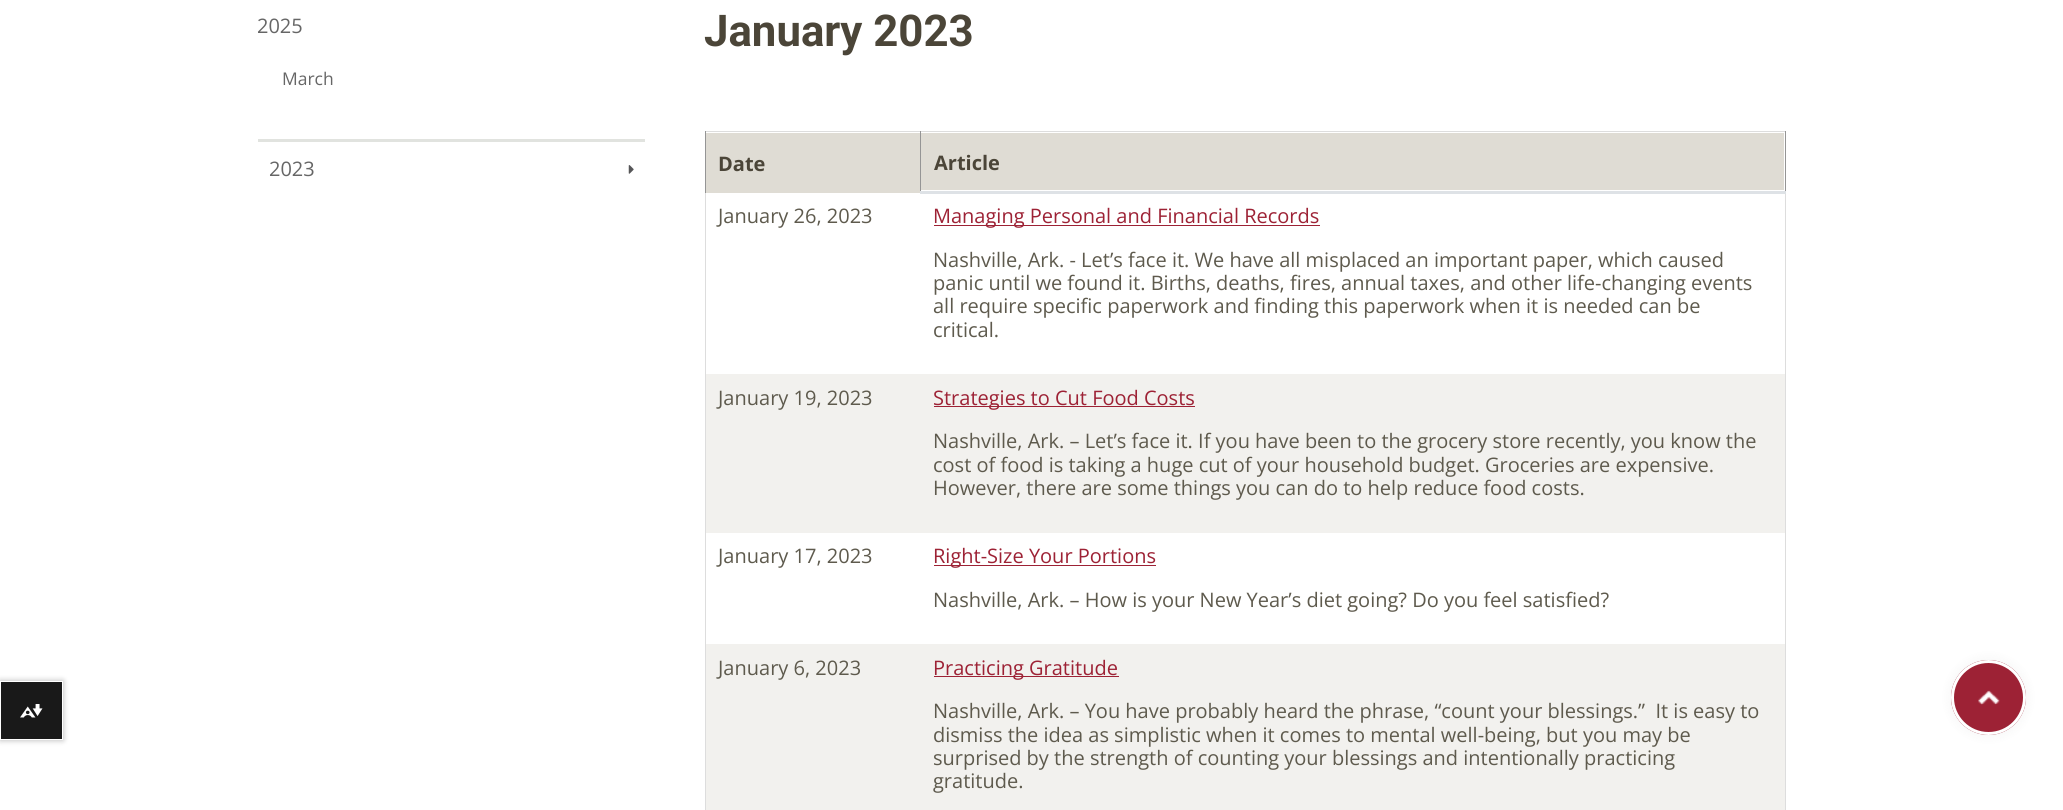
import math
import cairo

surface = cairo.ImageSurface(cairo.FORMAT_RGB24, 2063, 810)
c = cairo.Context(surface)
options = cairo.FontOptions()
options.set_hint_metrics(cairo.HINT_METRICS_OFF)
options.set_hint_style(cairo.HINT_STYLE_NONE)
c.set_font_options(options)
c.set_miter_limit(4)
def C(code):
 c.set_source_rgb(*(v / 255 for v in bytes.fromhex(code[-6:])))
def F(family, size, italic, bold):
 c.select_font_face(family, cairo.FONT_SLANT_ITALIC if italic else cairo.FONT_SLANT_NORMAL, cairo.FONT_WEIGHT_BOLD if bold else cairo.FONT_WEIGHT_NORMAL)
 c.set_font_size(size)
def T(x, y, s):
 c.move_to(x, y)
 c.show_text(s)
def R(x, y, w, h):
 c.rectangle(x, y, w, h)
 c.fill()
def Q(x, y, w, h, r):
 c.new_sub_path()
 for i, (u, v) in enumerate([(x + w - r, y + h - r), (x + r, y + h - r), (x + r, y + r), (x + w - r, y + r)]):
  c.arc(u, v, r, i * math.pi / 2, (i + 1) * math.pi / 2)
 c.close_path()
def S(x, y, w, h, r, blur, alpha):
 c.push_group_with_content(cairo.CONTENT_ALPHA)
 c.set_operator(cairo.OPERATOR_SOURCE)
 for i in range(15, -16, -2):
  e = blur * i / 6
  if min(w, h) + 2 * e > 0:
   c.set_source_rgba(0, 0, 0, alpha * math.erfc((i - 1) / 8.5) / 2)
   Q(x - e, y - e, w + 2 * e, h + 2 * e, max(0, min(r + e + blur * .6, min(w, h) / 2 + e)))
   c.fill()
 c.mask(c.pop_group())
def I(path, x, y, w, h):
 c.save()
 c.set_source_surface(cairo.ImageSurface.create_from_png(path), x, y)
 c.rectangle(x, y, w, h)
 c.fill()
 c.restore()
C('ffffff')
c.paint()
c.save()
c.set_fill_rule(cairo.FILL_RULE_EVEN_ODD)
c.new_path()
c.move_to(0,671)
c.line_to(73,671)
c.line_to(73,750)
c.line_to(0,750)
c.close_path()
c.move_to(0,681)
c.line_to(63,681)
c.line_to(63,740)
c.line_to(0,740)
c.close_path()
c.clip()
C('000000')
S(0,681,63,59,0,3,.3)
c.restore()
c.set_source_rgba(0,0,0,0.9)
c.rectangle(.5,681.5,62,58)
c.fill_preserve()
C('ffffff')
c.set_line_width(1)
c.stroke()
I('1.png',20,704,23,14)
F('Open Sans',20,0,0)
C('666666')
T(257,33,'2025')
F('Open Sans',17.5,0,0)
T(282,85,'March')
C('e1e3df')
R(258,139,387,3)
F('Open Sans',20,0,0)
C('666666')
T(269,176,'2023')
I('2.png',628,165,6,9)
F('Roboto',43.75,0,1)
C('4b4538')
T(704,46,'January 2023')
C('dddddd')
R(705,131,1081,1)
R(1785,194,1,616)
R(705,193,1,617)
C('dfdcd4')
R(706,133,214,60)
C('959595')
R(920,131,1,62)
R(705,131,1,62)
F('Open Sans',20,0,1)
C('4b4538')
T(718,171,'Date')
C('dfdcd4')
R(921,133,863,57)
C('959595')
R(1785,131,1,62)
C('dee2e6')
R(920,191,866,3)
C('4b4538')
T(934,170,'Article')
F('Open Sans',20,0,0)
C('5e5a4d')
T(718,223,'January 26, 2023')
C('9d2235')
R(934,225,386,1)
T(933,223,'Managing Personal and Financial Records')
C('5e5a4d')
T(933,267,'Nashville, Ark. - Let’s face it. We have all misplaced an important paper, which caused')
T(933,290,'panic until we found it. Births, deaths, fires, annual taxes, and other life-changing events')
T(933,313,'all require specific paperwork and finding this paperwork when it is needed can be')
T(933,337,'critical.')
C('f2f1ee')
R(706,374,1079,159)
C('5e5a4d')
T(718,405,'January 19, 2023')
C('9d2235')
R(934,406,261,1)
T(933,405,'Strategies to Cut Food Costs')
C('5e5a4d')
T(933,448,'Nashville, Ark. – Let’s face it. If you have been to the grocery store recently, you know the')
T(933,472,'cost of food is taking a huge cut of your household budget. Groceries are expensive.')
T(933,495,'However, there are some things you can do to help reduce food costs.')
T(718,563,'January 17, 2023')
C('9d2235')
R(934,565,222,1)
T(933,563,'Right-Size Your Portions')
C('5e5a4d')
T(933,607,'Nashville, Ark. – How is your New Year’s diet going? Do you feel satisfied?')
C('f2f1ee')
R(706,644,1079,166)
C('5e5a4d')
T(718,675,'January 6, 2023')
C('9d2235')
R(934,676,185,1)
T(933,675,'Practicing Gratitude')
C('5e5a4d')
T(933,718,'Nashville, Ark. – You have probably heard the phrase, “count your blessings.”  It is easy to')
T(933,742,'dismiss the idea as simplistic when it comes to mental well-being, but you may be')
T(933,765,'surprised by the strength of counting your blessings and intentionally practicing')
T(933,788,'gratitude.')
C('000000')
S(1951,660,75,75,37.5,6,.05)
C('9d2235')
c.arc(1988.5,697.5,37.5,0,2 * math.pi)
c.fill()
I('3.png',1978,690,22,15)
c.arc(1988.5,697.5,36,0,2 * math.pi)
C('ffffff')
c.set_line_width(3)
c.stroke()
surface.write_to_png('o.png')
